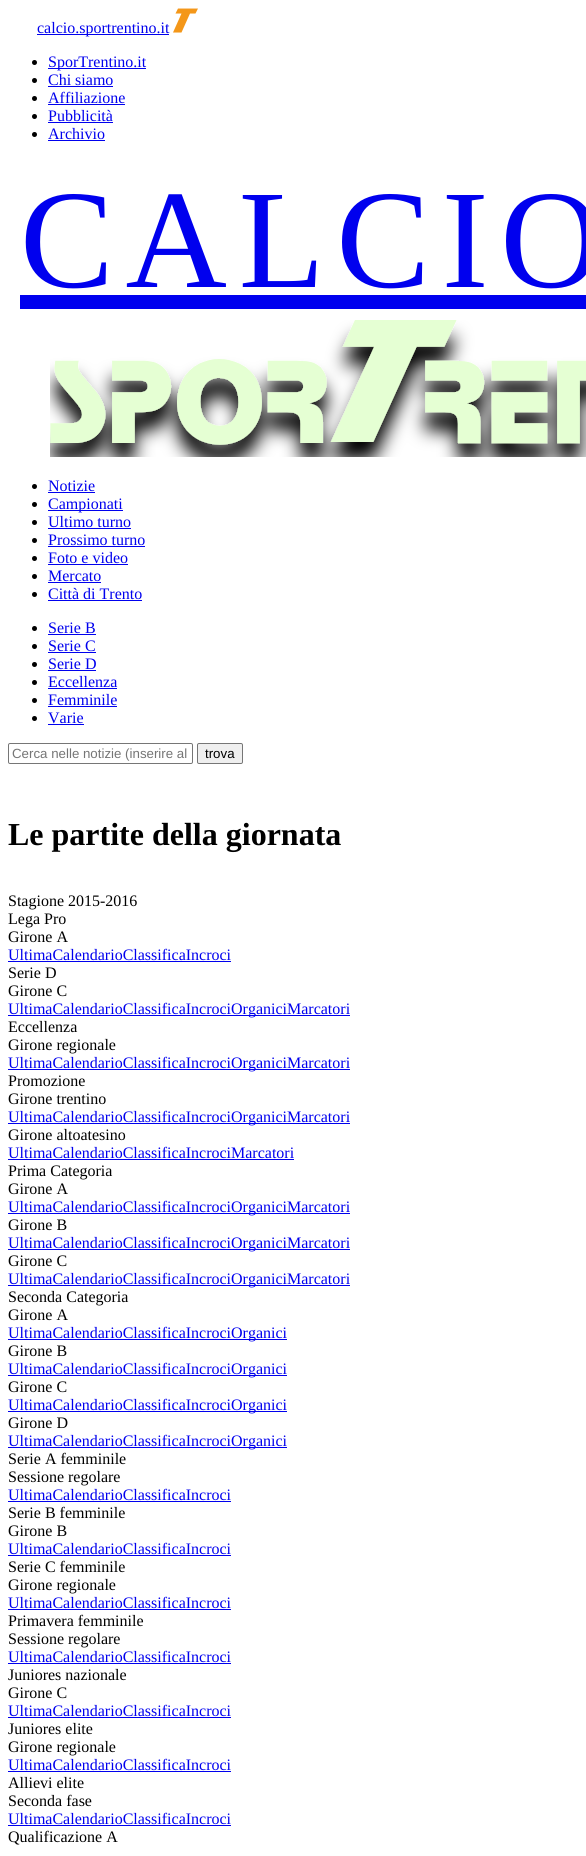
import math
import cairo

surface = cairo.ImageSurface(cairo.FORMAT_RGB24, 586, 1856)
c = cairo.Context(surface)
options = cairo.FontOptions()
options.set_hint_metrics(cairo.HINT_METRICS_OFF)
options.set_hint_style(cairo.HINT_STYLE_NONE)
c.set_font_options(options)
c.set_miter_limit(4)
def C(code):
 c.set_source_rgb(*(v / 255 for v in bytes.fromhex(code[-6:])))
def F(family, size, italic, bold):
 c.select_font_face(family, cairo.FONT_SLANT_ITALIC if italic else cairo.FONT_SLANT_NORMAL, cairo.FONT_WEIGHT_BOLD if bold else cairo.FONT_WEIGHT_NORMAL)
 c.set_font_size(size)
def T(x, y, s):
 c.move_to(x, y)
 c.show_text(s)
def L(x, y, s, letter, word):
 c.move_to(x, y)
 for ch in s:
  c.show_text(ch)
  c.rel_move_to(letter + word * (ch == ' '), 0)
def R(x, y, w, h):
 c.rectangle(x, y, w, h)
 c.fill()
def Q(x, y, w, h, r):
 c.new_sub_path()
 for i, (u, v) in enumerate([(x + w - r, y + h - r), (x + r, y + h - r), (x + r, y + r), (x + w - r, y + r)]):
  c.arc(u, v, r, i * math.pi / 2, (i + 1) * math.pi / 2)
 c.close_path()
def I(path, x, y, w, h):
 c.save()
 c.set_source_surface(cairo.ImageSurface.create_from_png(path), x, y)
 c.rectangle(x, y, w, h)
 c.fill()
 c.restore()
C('ffffff')
c.paint()
C('0000ee')
R(37,34,132,1)
F('Liberation Serif',16,0,0)
T(37,33,'calcio.sportrentino.it')
C('f49719')
c.new_path()
c.move_to(190,13.5)
c.line_to(181.5,32.5)
c.line_to(173,32.5)
c.line_to(181.5,13.5)
c.line_to(175.5,13.5)
c.line_to(178,8.5)
c.line_to(198,8.5)
c.line_to(195.5,13.5)
c.close_path()
c.fill()
C('000000')
c.arc(34.5,62.5,2.5,0,2 * math.pi)
c.fill()
C('0000ee')
R(48,68,98,1)
T(48,67,'SporTrentino.it')
C('000000')
c.new_path()
c.arc(34.5,80.5,2.5,0,2 * math.pi)
c.fill()
C('0000ee')
T(48,85,'Chi siamo')
R(48,86,65,1)
C('000000')
c.new_path()
c.arc(34.5,98.5,2.5,0,2 * math.pi)
c.fill()
C('0000ee')
T(48,103,'Affiliazione')
R(48,104,77,1)
C('000000')
c.new_path()
c.arc(34.5,116.5,2.5,0,2 * math.pi)
c.fill()
C('0000ee')
T(48,121,'Pubblicità')
R(48,122,65,1)
C('000000')
c.new_path()
c.arc(34.5,134.5,2.5,0,2 * math.pi)
c.fill()
C('0000ee')
T(48,139,'Archivio')
R(48,140,57,1)
F('Liberation Serif',140.5,0,0)
L(20,287,'CALCIO',11.75,0)
R(20,295,566,14)
I('1.png',50,320,536,137)
C('000000')
c.arc(34.5,486.5,2.5,0,2 * math.pi)
c.fill()
F('Liberation Serif',16,0,0)
C('0000ee')
T(48,491,'Notizie')
R(48,492,47,1)
C('000000')
c.new_path()
c.arc(34.5,504.5,2.5,0,2 * math.pi)
c.fill()
C('0000ee')
R(48,510,75,1)
T(48,509,'Campionati')
C('000000')
c.new_path()
c.arc(34.5,522.5,2.5,0,2 * math.pi)
c.fill()
C('0000ee')
T(48,527,'Ultimo turno')
R(48,528,83,1)
C('000000')
c.new_path()
c.arc(34.5,540.5,2.5,0,2 * math.pi)
c.fill()
C('0000ee')
T(48,545,'Prossimo turno')
R(48,546,97,1)
C('000000')
c.new_path()
c.arc(34.5,558.5,2.5,0,2 * math.pi)
c.fill()
C('0000ee')
T(48,563,'Foto e video')
R(48,564,80,1)
C('000000')
c.new_path()
c.arc(34.5,576.5,2.5,0,2 * math.pi)
c.fill()
C('0000ee')
T(48,581,'Mercato')
R(48,582,53,1)
C('000000')
c.new_path()
c.arc(34.5,594.5,2.5,0,2 * math.pi)
c.fill()
C('0000ee')
T(48,599,'Città di Trento')
R(48,600,94,1)
C('000000')
c.new_path()
c.arc(34.5,628.5,2.5,0,2 * math.pi)
c.fill()
C('0000ee')
T(48,633,'Serie B')
R(48,634,48,1)
C('000000')
c.new_path()
c.arc(34.5,646.5,2.5,0,2 * math.pi)
c.fill()
C('0000ee')
T(48,651,'Serie C')
R(48,652,48,1)
C('000000')
c.new_path()
c.arc(34.5,664.5,2.5,0,2 * math.pi)
c.fill()
C('0000ee')
T(48,669,'Serie D')
R(48,670,48,1)
C('000000')
c.new_path()
c.arc(34.5,682.5,2.5,0,2 * math.pi)
c.fill()
C('0000ee')
T(48,687,'Eccellenza')
R(48,688,69,1)
C('000000')
c.new_path()
c.arc(34.5,700.5,2.5,0,2 * math.pi)
c.fill()
C('0000ee')
T(48,705,'Femminile')
R(48,706,69,1)
C('000000')
c.new_path()
c.arc(34.5,718.5,2.5,0,2 * math.pi)
c.fill()
C('0000ee')
T(48,723,'Varie')
R(48,724,36,1)
Q(8.5,743.5,184,20,1.5)
C('767676')
c.set_line_width(1)
c.stroke()
F('Liberation Sans',13.3,0,0)
C('757575')
T(12,758,'Cerca nelle notizie (inserire al')
C('efefef')
Q(197.5,743.5,45,20,1.5)
c.fill_preserve()
C('767676')
c.stroke()
C('000000')
T(205,758,'trova')
F('Liberation Serif',32,0,1)
T(8,845,'Le partite della giornata')
F('Liberation Serif',16,0,0)
T(8,906,'Stagione 2015-2016')
T(8,924,'Lega Pro')
T(8,942,'Girone A')
C('0000ee')
T(8,960,'UltimaCalendarioClassificaIncroci')
R(8,961,223,1)
C('000000')
T(8,978,'Serie D')
T(8,996,'Girone C')
C('0000ee')
R(8,1015,342,1)
T(8,1014,'UltimaCalendarioClassificaIncrociOrganiciMarcatori')
C('000000')
T(8,1032,'Eccellenza')
T(8,1050,'Girone regionale')
C('0000ee')
R(8,1069,342,1)
T(8,1068,'UltimaCalendarioClassificaIncrociOrganiciMarcatori')
C('000000')
T(8,1086,'Promozione')
T(8,1104,'Girone trentino')
C('0000ee')
R(8,1123,342,1)
T(8,1122,'UltimaCalendarioClassificaIncrociOrganiciMarcatori')
C('000000')
T(8,1140,'Girone altoatesino')
C('0000ee')
T(8,1158,'UltimaCalendarioClassificaIncrociMarcatori')
R(8,1159,286,1)
C('000000')
T(8,1176,'Prima Categoria')
T(8,1194,'Girone A')
C('0000ee')
R(8,1213,342,1)
T(8,1212,'UltimaCalendarioClassificaIncrociOrganiciMarcatori')
C('000000')
T(8,1230,'Girone B')
C('0000ee')
R(8,1249,342,1)
T(8,1248,'UltimaCalendarioClassificaIncrociOrganiciMarcatori')
C('000000')
T(8,1266,'Girone C')
C('0000ee')
R(8,1285,342,1)
T(8,1284,'UltimaCalendarioClassificaIncrociOrganiciMarcatori')
C('000000')
T(8,1302,'Seconda Categoria')
T(8,1320,'Girone A')
C('0000ee')
R(8,1339,279,1)
T(8,1338,'UltimaCalendarioClassificaIncrociOrganici')
C('000000')
T(8,1356,'Girone B')
C('0000ee')
R(8,1375,279,1)
T(8,1374,'UltimaCalendarioClassificaIncrociOrganici')
C('000000')
T(8,1392,'Girone C')
C('0000ee')
R(8,1411,279,1)
T(8,1410,'UltimaCalendarioClassificaIncrociOrganici')
C('000000')
T(8,1428,'Girone D')
C('0000ee')
R(8,1447,279,1)
T(8,1446,'UltimaCalendarioClassificaIncrociOrganici')
C('000000')
T(8,1464,'Serie A femminile')
T(8,1482,'Sessione regolare')
C('0000ee')
T(8,1500,'UltimaCalendarioClassificaIncroci')
R(8,1501,223,1)
C('000000')
T(8,1518,'Serie B femminile')
T(8,1536,'Girone B')
C('0000ee')
T(8,1554,'UltimaCalendarioClassificaIncroci')
R(8,1555,223,1)
C('000000')
T(8,1572,'Serie C femminile')
T(8,1590,'Girone regionale')
C('0000ee')
T(8,1608,'UltimaCalendarioClassificaIncroci')
R(8,1609,223,1)
C('000000')
T(8,1626,'Primavera femminile')
T(8,1644,'Sessione regolare')
C('0000ee')
T(8,1662,'UltimaCalendarioClassificaIncroci')
R(8,1663,223,1)
C('000000')
T(8,1680,'Juniores nazionale')
T(8,1698,'Girone C')
C('0000ee')
T(8,1716,'UltimaCalendarioClassificaIncroci')
R(8,1717,223,1)
C('000000')
T(8,1734,'Juniores elite')
T(8,1752,'Girone regionale')
C('0000ee')
T(8,1770,'UltimaCalendarioClassificaIncroci')
R(8,1771,223,1)
C('000000')
T(8,1788,'Allievi elite')
T(8,1806,'Seconda fase')
C('0000ee')
T(8,1824,'UltimaCalendarioClassificaIncroci')
R(8,1825,223,1)
C('000000')
T(8,1842,'Qualificazione A')
surface.write_to_png('o.png')
